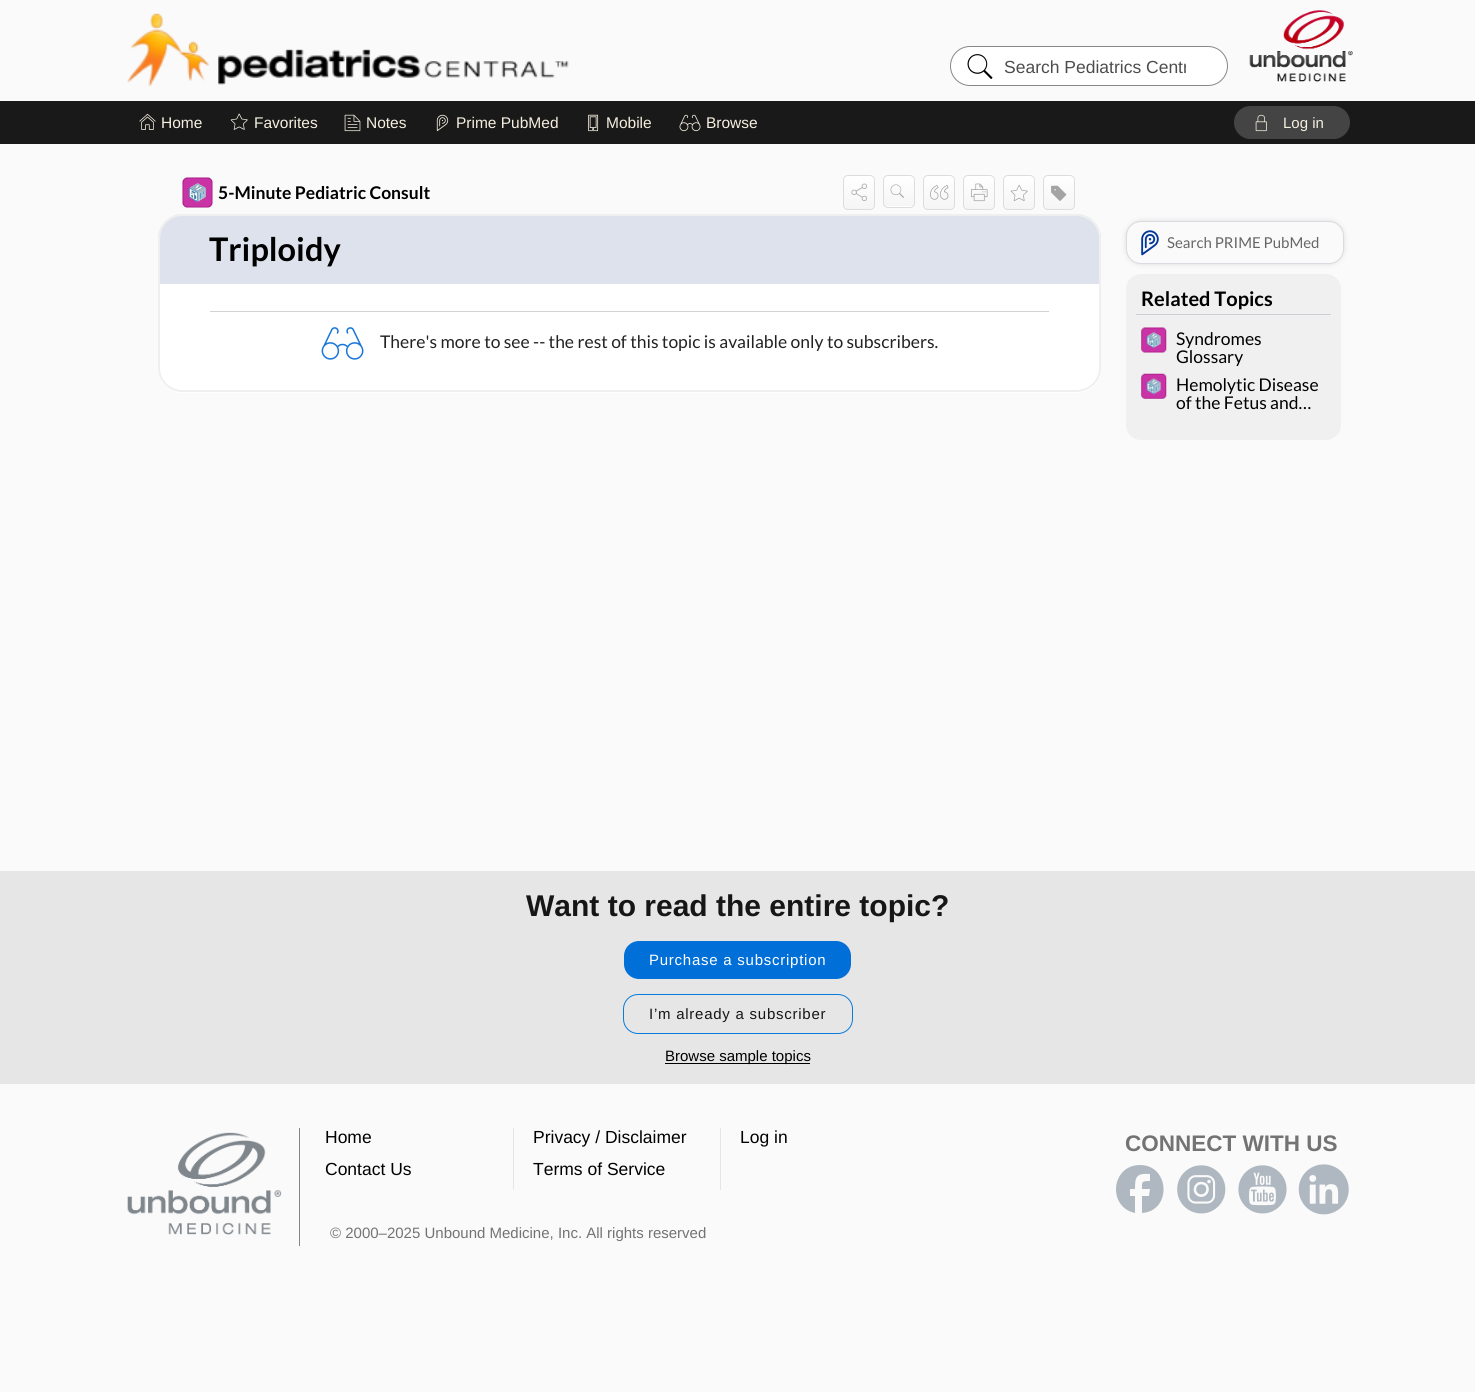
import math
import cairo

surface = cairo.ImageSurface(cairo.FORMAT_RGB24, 1475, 1392)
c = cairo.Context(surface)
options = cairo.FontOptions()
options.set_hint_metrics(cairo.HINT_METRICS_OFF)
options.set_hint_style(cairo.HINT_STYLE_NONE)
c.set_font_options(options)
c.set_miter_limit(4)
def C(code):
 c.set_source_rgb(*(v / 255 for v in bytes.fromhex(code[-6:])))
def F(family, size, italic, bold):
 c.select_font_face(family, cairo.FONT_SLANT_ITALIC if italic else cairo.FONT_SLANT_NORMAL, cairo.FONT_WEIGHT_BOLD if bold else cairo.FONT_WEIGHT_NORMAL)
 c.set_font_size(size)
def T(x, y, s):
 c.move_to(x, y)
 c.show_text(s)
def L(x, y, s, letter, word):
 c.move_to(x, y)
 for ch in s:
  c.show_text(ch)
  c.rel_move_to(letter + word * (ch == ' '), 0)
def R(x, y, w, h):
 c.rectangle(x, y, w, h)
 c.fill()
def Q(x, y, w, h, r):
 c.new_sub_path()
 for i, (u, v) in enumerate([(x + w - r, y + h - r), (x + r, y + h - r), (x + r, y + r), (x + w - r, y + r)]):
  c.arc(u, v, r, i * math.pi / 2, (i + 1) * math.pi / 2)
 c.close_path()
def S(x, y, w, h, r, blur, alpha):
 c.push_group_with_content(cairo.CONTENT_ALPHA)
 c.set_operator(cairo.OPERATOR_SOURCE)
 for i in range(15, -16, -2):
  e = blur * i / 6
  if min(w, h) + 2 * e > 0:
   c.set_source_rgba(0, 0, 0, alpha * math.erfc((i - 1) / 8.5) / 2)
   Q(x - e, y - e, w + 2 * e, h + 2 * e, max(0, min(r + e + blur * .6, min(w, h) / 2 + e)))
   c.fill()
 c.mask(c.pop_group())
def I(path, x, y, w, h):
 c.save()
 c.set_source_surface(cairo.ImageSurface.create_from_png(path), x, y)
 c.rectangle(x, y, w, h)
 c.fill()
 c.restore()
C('fafafa')
c.paint()
I('1.png',127,13,442,74)
C('ffffff')
Q(950.5,46.5,277,39,19.5)
c.fill_preserve()
C('878787')
c.set_line_width(1)
c.stroke()
I('2.png',967,54,26,25)
c.save()
c.rectangle(991,56,195,20)
c.clip()
F('Liberation Sans',17.5,0,0)
C('4d4d4d')
T(1004,73,'Search Pediatrics Centr')
c.restore()
I('3.png',1249,10,104,72)
C('191919')
R(0,101,1475,43)
I('4.png',139,113,17,17)
F('Liberation Sans',15.5,0,0)
C('f5efe0')
T(161,128,'Home')
I('5.png',230,113,18,17)
T(254,128,'Favorites')
I('6.png',344,114,17,18)
T(366,128,'Notes')
I('7.png',436,114,13,18)
T(456,128,'Prime PubMed')
I('8.png',588,114,11,18)
T(606,128,'Mobile')
I('9.png',679,114,22,18)
T(706,128,'Browse')
C('444444')
Q(1234,106,116,33,16.5)
c.fill()
I('10.png',1255,114,12,18)
F('Liberation Sans',15,0,0)
C('f5efe0')
T(1283,128,'Log in')
I('11.png',182,177,31,31)
F('Lato',17.5,0,1)
C('000000')
T(218,199,'5-Minute Pediatric Consult')
c.save()
Q(843,175,32,35,5)
c.clip()
gradient = cairo.LinearGradient(859,176,859,209)
gradient.add_color_stop_rgba(0,1,1,1,1)
gradient.add_color_stop_rgba(1,0.961,0.961,0.961,1)
c.set_source(gradient)
R(843,176,32,33)
c.restore()
Q(843.5,175.5,31,34,4.5)
C('dbdddf')
c.stroke()
I('12.png',851,183,16,18)
c.save()
Q(883,175,32,33,5)
c.clip()
gradient = cairo.LinearGradient(899,176,899,206)
gradient.add_color_stop_rgba(0,1,1,1,1)
gradient.add_color_stop_rgba(1,0.961,0.961,0.961,1)
c.set_source(gradient)
R(883,176,32,30)
gradient = cairo.LinearGradient(899,206,899,236)
gradient.add_color_stop_rgba(0,1,1,1,1)
gradient.add_color_stop_rgba(1,0.961,0.961,0.961,1)
c.set_source(gradient)
R(883,206,32,2)
c.restore()
Q(883.5,175.5,31,32,4.5)
c.stroke()
I('13.png',890,184,14,14)
c.save()
Q(923,175,32,35,5)
c.clip()
gradient = cairo.LinearGradient(939,176,939,209)
gradient.add_color_stop_rgba(0,1,1,1,1)
gradient.add_color_stop_rgba(1,0.961,0.961,0.961,1)
c.set_source(gradient)
R(923,176,32,33)
c.restore()
Q(923.5,175.5,31,34,4.5)
c.stroke()
I('14.png',930,185,19,15)
c.save()
Q(963,175,32,35,5)
c.clip()
gradient = cairo.LinearGradient(979,176,979,209)
gradient.add_color_stop_rgba(0,1,1,1,1)
gradient.add_color_stop_rgba(1,0.961,0.961,0.961,1)
c.set_source(gradient)
R(963,176,32,33)
c.restore()
Q(963.5,175.5,31,34,4.5)
c.stroke()
I('15.png',971,183,17,19)
c.save()
Q(1003,175,32,35,5)
c.clip()
gradient = cairo.LinearGradient(1019,176,1019,209)
gradient.add_color_stop_rgba(0,1,1,1,1)
gradient.add_color_stop_rgba(1,0.961,0.961,0.961,1)
c.set_source(gradient)
R(1003,176,32,33)
c.restore()
Q(1003.5,175.5,31,34,4.5)
c.stroke()
I('16.png',1010,184,18,17)
c.save()
Q(1043,175,32,35,5)
c.clip()
gradient = cairo.LinearGradient(1059,176,1059,209)
gradient.add_color_stop_rgba(0,1,1,1,1)
gradient.add_color_stop_rgba(1,0.961,0.961,0.961,1)
c.set_source(gradient)
R(1043,176,32,33)
c.restore()
Q(1043.5,175.5,31,34,4.5)
c.stroke()
I('17.png',1051,185,16,16)
C('dee2ed')
c.new_path()
c.move_to(183,214)
c.line_to(1076,214)
c.curve_to(1090,214,1101,225,1101,239)
c.line_to(1101,284)
c.line_to(158,284)
c.line_to(158,239)
c.curve_to(158,225,169,214,183,214)
c.close_path()
c.fill()
C('efefef')
c.set_fill_rule(cairo.FILL_RULE_EVEN_ODD)
c.new_path()
c.move_to(182,214)
c.line_to(1076,214)
c.curve_to(1090,214,1101,225,1101,239)
c.line_to(1101,284)
c.line_to(158,284)
c.line_to(158,239)
c.curve_to(158,225,169,214,182,214)
c.close_path()
c.move_to(182,216)
c.line_to(1076,216)
c.curve_to(1089,216,1099,226,1099,239)
c.line_to(1099,284)
c.line_to(160,284)
c.line_to(160,239)
c.curve_to(160,226,170,216,182,216)
c.close_path()
c.fill()
F('Lato',32.5,0,1)
C('000000')
T(209,261,'Triploidy')
C('ffffff')
c.new_path()
c.move_to(158,284)
c.line_to(1101,284)
c.line_to(1101,368)
c.curve_to(1101,382,1090,393,1076,393)
c.line_to(183,393)
c.curve_to(169,393,158,382,158,368)
c.close_path()
c.fill()
C('efefef')
c.new_path()
c.move_to(158,284)
c.line_to(1101,284)
c.line_to(1101,368)
c.curve_to(1101,381,1090,392,1076,392)
c.line_to(182,392)
c.curve_to(169,392,158,381,158,368)
c.close_path()
c.move_to(160,284)
c.line_to(1099,284)
c.line_to(1099,368)
c.curve_to(1099,380,1089,390,1076,390)
c.line_to(182,390)
c.curve_to(170,390,160,380,160,368)
c.close_path()
c.fill()
C('d3d3d3')
R(210,311,839,1)
I('18.png',321,327,43,33)
F('Lato',17.5,0,0)
C('222222')
T(380,348,'There\'s more to see -- the rest of this topic is available only to subscribers.')
C('dddddd')
S(1126,221,218,43,15,2.5,1)
C('fafafa')
Q(1126.5,221.5,217,42,14.5)
c.fill_preserve()
C('d9dbe0')
c.stroke()
I('19.png',1141,230,18,26)
F('Lato',15,0,0)
C('666666')
T(1167,248,'Search PRIME PubMed')
C('f0f0f0')
Q(1126,274,215,166,15)
c.fill()
C('cccfd3')
R(1136,314,195,1)
F('Lato',20,0,1)
C('000000')
T(1141,306,'Related Topics')
I('20.png',1141,327,26,26)
F('Lato',17.5,0,0)
T(1176,345,'Syndromes')
T(1176,363,'Glossary')
I('21.png',1141,373,26,26)
T(1176,391,'Hemolytic Disease')
T(1176,409,'of the Fetus and…')
C('e6e6e6')
R(0,871,1475,213)
F('Liberation Sans',30,0,1)
C('161616')
T(526,916,'Want to read the entire topic?')
C('006fd8')
Q(624,941,227,38,15)
c.fill()
F('Liberation Sans',15,0,0)
C('ffffff')
L(649,965,'Purchase a subscription',.75,0)
Q(623.5,994.5,229,39,14.5)
C('097bd9')
c.stroke()
C('161616')
L(649,1019,'I’m already a subscriber',.75,0)
C('000000')
R(665,1063,145,1)
T(665,1061,'Browse sample topics')
C('7f868c')
R(299,1128,1,118)
I('22.png',127,1132,155,103)
C('e4e7e9')
R(513,1128,1,62)
F('Liberation Sans',17.5,0,0)
C('000000')
T(325,1143,'Home')
T(325,1175,'Contact Us')
C('e4e7e9')
R(720,1128,1,62)
C('000000')
T(533,1143,'Privacy / Disclaimer')
T(533,1175,'Terms of Service')
T(740,1143,'Log in')
F('Liberation Sans',22.5,0,1)
C('737373')
T(1125,1151,'CONNECT WITH US')
C('afb8c0')
c.set_fill_rule(cairo.FILL_RULE_WINDING)
c.new_path()
c.move_to(1140,1165)
c.curve_to(1111,1165,1107,1207,1135,1213)
c.line_to(1135,1196)
c.line_to(1130,1196)
c.line_to(1130,1189)
c.line_to(1135,1189)
c.curve_to(1135,1177,1136,1173,1150,1174)
c.line_to(1150,1181)
c.curve_to(1141,1181,1142,1182,1142,1189)
c.line_to(1150,1189)
c.line_to(1149,1196)
c.line_to(1142,1196)
c.line_to(1142,1213)
c.curve_to(1172,1211,1170,1165,1140,1165)
c.close_path()
c.fill()
I('23.png',1177,1165,49,49)
I('24.png',1238,1165,49,49)
I('25.png',1298,1164,51,51)
F('Liberation Sans',15,0,0)
C('737373')
T(330,1238,'© 2000–2025 Unbound Medicine, Inc. All rights reserved')
surface.write_to_png('o.png')
